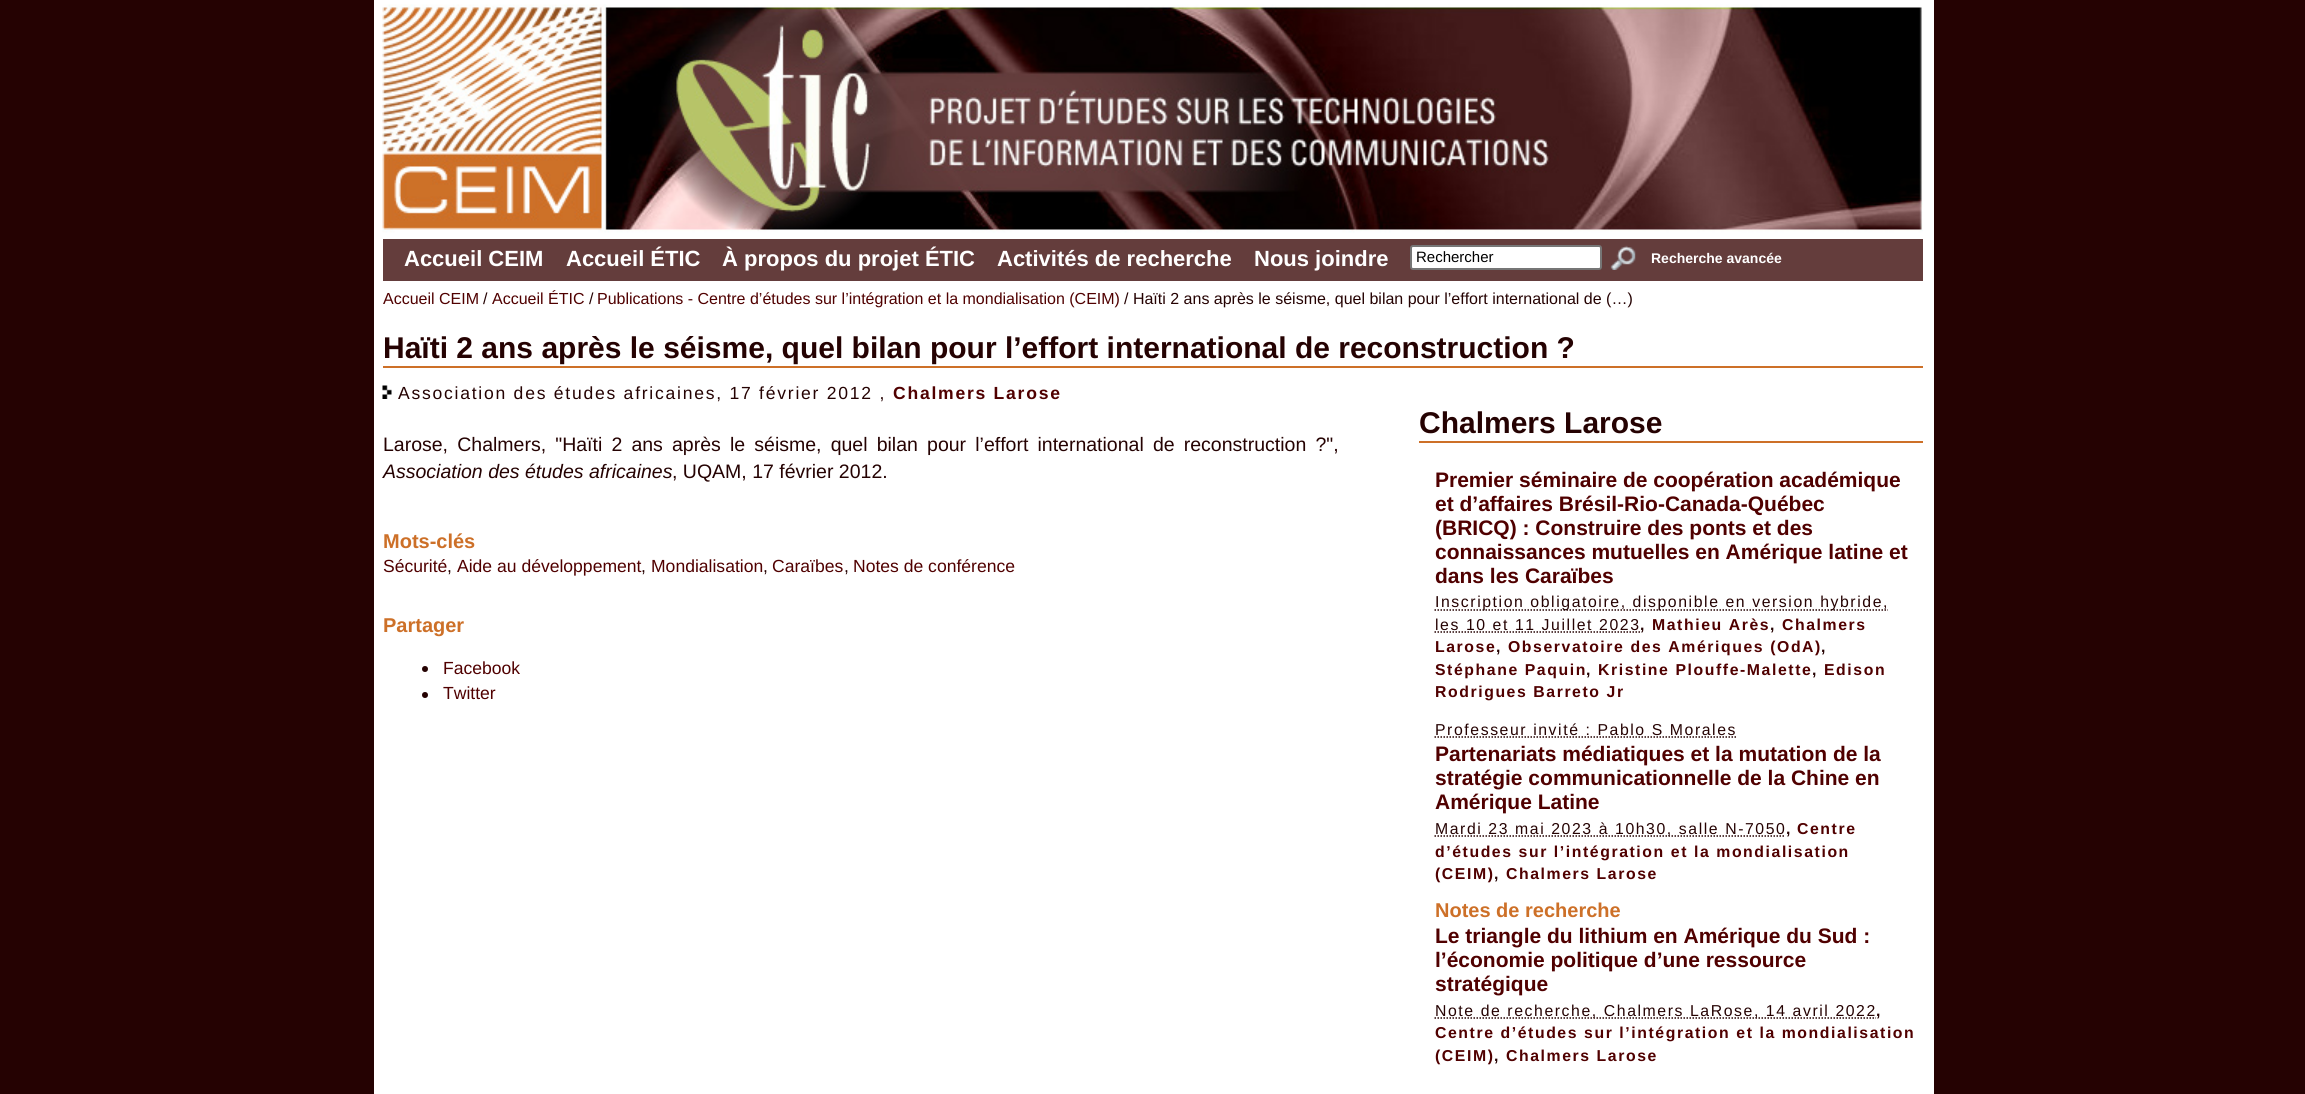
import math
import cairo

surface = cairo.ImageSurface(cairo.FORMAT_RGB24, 2305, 1094)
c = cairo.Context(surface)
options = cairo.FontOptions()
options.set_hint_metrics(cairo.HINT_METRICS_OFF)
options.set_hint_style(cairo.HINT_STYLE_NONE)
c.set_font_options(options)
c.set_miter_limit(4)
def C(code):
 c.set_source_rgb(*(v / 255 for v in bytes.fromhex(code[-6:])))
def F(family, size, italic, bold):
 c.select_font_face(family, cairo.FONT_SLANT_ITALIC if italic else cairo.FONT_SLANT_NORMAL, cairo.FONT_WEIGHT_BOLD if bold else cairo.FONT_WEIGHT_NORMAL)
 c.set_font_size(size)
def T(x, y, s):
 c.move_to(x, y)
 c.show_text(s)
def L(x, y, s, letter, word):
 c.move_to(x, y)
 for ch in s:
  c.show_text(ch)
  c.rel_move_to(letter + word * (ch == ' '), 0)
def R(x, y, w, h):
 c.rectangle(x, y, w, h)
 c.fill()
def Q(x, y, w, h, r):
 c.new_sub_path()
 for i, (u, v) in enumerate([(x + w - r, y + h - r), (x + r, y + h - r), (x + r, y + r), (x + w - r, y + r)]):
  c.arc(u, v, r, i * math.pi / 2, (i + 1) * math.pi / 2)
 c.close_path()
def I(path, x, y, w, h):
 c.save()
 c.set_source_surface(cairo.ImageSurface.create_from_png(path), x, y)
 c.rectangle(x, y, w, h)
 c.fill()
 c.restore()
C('250202')
c.paint()
C('ffffff')
R(374,0,1560,1094)
I('1.png',382,4,1541,229)
C('643d3c')
R(383,239,1540,42)
F('Liberation Sans',22,0,1)
C('ffffff')
T(404,266,'Accueil CEIM')
T(566,266,'Accueil ÉTIC')
T(722,266,'À propos du projet ÉTIC')
T(997,266,'Activités de recherche')
T(1254,266,'Nous joindre')
Q(1411,246,190,23,2)
c.fill_preserve()
C('767676')
c.stroke()
F('Liberation Sans',15,0,0)
C('000000')
T(1416,262,'Rechercher')
I('2.png',1610,245,26,25)
F('Liberation Sans',14,0,1)
C('ffffff')
T(1651,263,'Recherche avancée')
F('Liberation Sans',16,0,0)
C('500000')
T(383,304,'Accueil CEIM')
C('250202')
T(483,304,'/')
C('500000')
T(492,304,'Accueil ÉTIC')
C('250202')
T(589,304,'/')
C('500000')
T(597,304,'Publications - Centre d’études sur l’intégration et la mondialisation (CEIM)')
C('250202')
T(1124,304,'/ Haïti 2 ans après le séisme, quel bilan pour l’effort international de (…)')
C('cd7028')
R(383,366,1540,2)
F('Liberation Sans',30,0,1)
C('250202')
T(383,358,'Haïti 2 ans après le séisme, quel bilan pour l’effort international de reconstruction ?')
I('3.png',382,385,10,14)
F('Liberation Sans',17.55,0,0)
L(398,399,'Association des études africaines, 17 février 2012 ,',1.75,0)
F('Liberation Sans',17.55,0,1)
C('500000')
L(893,399,'Chalmers Larose',1.75,0)
F('Liberation Sans',19.5,0,0)
C('250202')
L(383,451,'Larose, Chalmers, "Haïti 2 ans après le séisme, quel bilan pour l’effort international de reconstruction ?",',0,3.75)
F('Liberation Sans',19.5,1,0)
T(383,478,'Association des études africaines')
F('Liberation Sans',19.5,0,0)
T(672,478,', UQAM, 17 février 2012.')
F('Liberation Sans',20,0,1)
C('cd7028')
T(383,548,'Mots-clés')
F('Liberation Sans',17.55,0,0)
C('500000')
T(383,572,'Sécurité')
C('250202')
T(447,572,',')
C('500000')
T(457,572,'Aide au développement')
C('250202')
T(641,572,',')
C('500000')
T(651,572,'Mondialisation')
C('250202')
T(763,572,',')
C('500000')
T(772,572,'Caraïbes')
C('250202')
T(844,572,',')
C('500000')
T(853,572,'Notes de conférence')
F('Liberation Sans',20,0,1)
C('cd7028')
T(383,632,'Partager')
C('250202')
c.new_path()
c.arc(425,669,3,0,2 * math.pi)
c.fill()
F('Liberation Sans',17.55,0,0)
C('500000')
T(443,674,'Facebook')
C('250202')
c.new_path()
c.arc(425,695,3,0,2 * math.pi)
c.fill()
C('500000')
T(443,699,'Twitter')
C('cd7028')
R(1419,441,504,2)
F('Liberation Sans',30,0,1)
C('250202')
T(1419,433,'Chalmers Larose')
F('Liberation Sans',21,0,1)
C('500000')
T(1435,487,'Premier séminaire de coopération académique')
T(1435,511,'et d’affaires Brésil-Rio-Canada-Québec')
T(1435,535,'(BRICQ) : Construire des ponts et des')
T(1435,559,'connaissances mutuelles en Amérique latine et')
T(1435,583,'dans les Caraïbes')
c.new_path()
c.move_to(1434.5,610)
c.line_to(1888,610)
C('250202')
c.set_line_width(1.5)
c.set_dash([1.5,1.5])
c.stroke()
F('Liberation Sans',15.8,0,0)
L(1435,607,'Inscription obligatoire, disponible en version hybride,',1.58,0)
L(1435,630,'les 10 et 11 Juillet 2023',1.58,0)
c.new_path()
c.move_to(1434.5,632)
c.line_to(1640,632)
c.stroke()
F('Liberation Sans',15.8,0,1)
L(1640,630,',',1.58,0)
C('500000')
L(1652,630,'Mathieu Arès',1.58,0)
C('250202')
L(1770,630,',',1.58,0)
C('500000')
L(1782,630,'Chalmers',1.58,0)
L(1435,652,'Larose',1.58,0)
C('250202')
L(1496,652,',',1.58,0)
C('500000')
L(1508,652,'Observatoire des Amériques (OdA)',1.58,0)
C('250202')
L(1821,652,',',1.58,0)
C('500000')
L(1435,675,'Stéphane Paquin',1.58,0)
C('250202')
L(1586,675,',',1.58,0)
C('500000')
L(1598,675,'Kristine Plouffe-Malette',1.58,0)
C('250202')
L(1812,675,',',1.58,0)
C('500000')
L(1824,675,'Edison',1.58,0)
L(1435,697,'Rodrigues Barreto Jr',1.58,0)
F('Liberation Sans',15.8,0,0)
C('250202')
L(1435,735,'Professeur invité : Pablo S Morales',1.58,0)
c.new_path()
c.move_to(1434.5,737)
c.line_to(1736,737)
c.stroke()
F('Liberation Sans',21,0,1)
C('500000')
T(1435,761,'Partenariats médiatiques et la mutation de la')
T(1435,785,'stratégie communicationnelle de la Chine en')
T(1435,809,'Amérique Latine')
c.new_path()
c.move_to(1434.5,836)
c.line_to(1785.5,836)
C('250202')
c.stroke()
F('Liberation Sans',15.8,0,0)
L(1435,834,'Mardi 23 mai 2023 à 10h30, salle N-7050',1.58,0)
F('Liberation Sans',15.8,0,1)
L(1786,834,',',1.58,0)
C('500000')
L(1797,834,'Centre',1.58,0)
L(1435,857,'d’études sur l’intégration et la mondialisation',1.58,0)
L(1435,879,'(CEIM)',1.58,0)
C('250202')
L(1494,879,',',1.58,0)
C('500000')
L(1506,879,'Chalmers Larose',1.58,0)
F('Liberation Sans',20,0,1)
C('cd7028')
T(1435,917,'Notes de recherche')
F('Liberation Sans',21,0,1)
C('500000')
T(1435,943,'Le triangle du lithium en Amérique du Sud :')
T(1435,967,'l’économie politique d’une ressource')
T(1435,991,'stratégique')
c.new_path()
c.move_to(1434.5,1018)
c.line_to(1876,1018)
C('250202')
c.stroke()
F('Liberation Sans',15.8,0,0)
L(1435,1016,'Note de recherche, Chalmers LaRose, 14 avril 2022',1.58,0)
F('Liberation Sans',15.8,0,1)
L(1876,1016,',',1.58,0)
C('500000')
L(1435,1038,'Centre d’études sur l’intégration et la mondialisation',1.58,0)
L(1435,1061,'(CEIM)',1.58,0)
C('250202')
L(1494,1061,',',1.58,0)
C('500000')
L(1506,1061,'Chalmers Larose',1.58,0)
surface.write_to_png('o.png')
